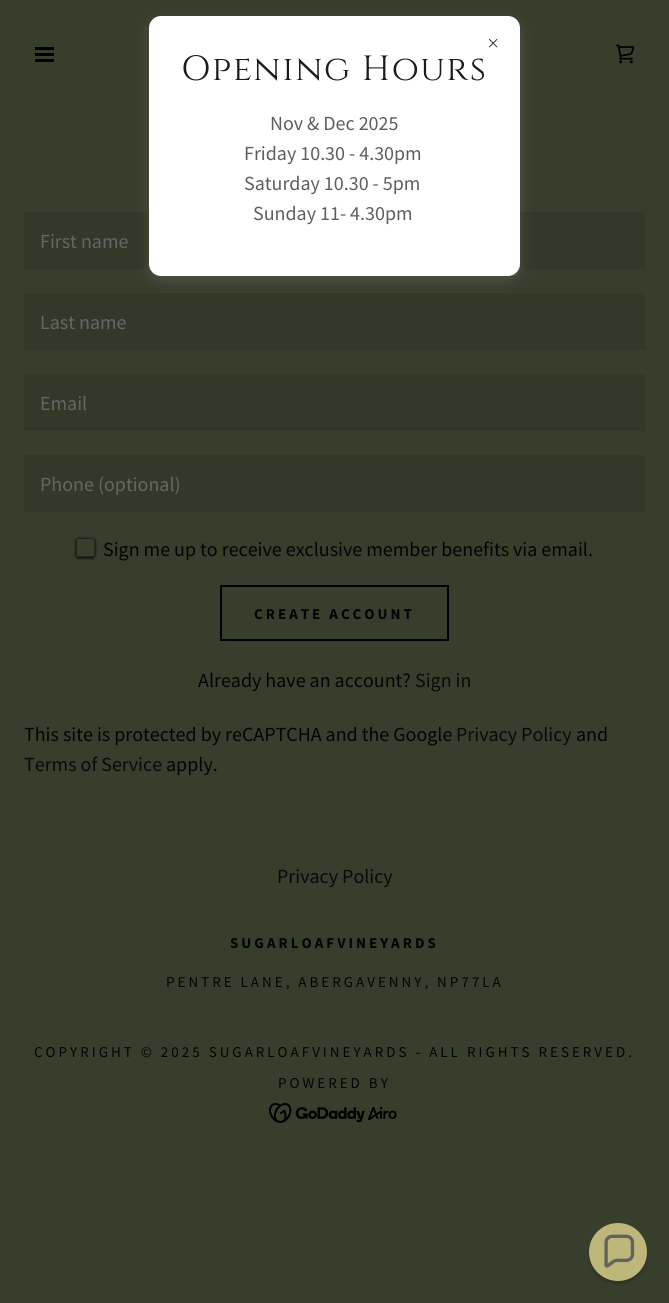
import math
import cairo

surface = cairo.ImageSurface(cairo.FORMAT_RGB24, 669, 1303)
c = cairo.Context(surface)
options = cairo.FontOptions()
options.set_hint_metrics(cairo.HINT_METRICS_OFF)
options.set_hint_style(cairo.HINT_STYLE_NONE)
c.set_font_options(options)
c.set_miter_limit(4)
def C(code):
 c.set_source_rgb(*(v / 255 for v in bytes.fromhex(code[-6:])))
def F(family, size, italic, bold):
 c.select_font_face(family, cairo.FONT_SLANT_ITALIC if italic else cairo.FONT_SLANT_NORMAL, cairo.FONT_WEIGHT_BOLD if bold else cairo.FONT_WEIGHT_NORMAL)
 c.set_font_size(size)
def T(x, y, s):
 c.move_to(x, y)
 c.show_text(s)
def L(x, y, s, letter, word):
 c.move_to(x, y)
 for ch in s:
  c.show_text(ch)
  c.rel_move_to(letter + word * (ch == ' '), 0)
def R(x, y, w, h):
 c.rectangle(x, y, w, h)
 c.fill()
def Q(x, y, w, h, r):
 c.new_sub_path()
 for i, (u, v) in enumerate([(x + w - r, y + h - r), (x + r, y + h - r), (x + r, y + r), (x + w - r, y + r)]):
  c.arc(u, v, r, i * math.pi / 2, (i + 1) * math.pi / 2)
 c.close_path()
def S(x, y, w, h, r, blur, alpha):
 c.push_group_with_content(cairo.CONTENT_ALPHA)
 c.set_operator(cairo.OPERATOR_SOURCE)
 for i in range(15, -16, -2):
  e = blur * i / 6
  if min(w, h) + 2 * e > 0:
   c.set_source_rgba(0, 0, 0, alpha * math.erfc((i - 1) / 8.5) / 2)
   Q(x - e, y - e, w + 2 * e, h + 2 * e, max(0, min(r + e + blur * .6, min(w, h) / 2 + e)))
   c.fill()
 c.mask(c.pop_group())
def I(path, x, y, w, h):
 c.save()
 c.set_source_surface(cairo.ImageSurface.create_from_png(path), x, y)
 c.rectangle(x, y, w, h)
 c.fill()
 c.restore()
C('383e2c')
c.paint()
C('000000')
R(35,47,19,3)
R(35,53,19,3)
R(35,59,19,3)
I('1.png',615,44,20,20)
C('333928')
R(24,212,621,57)
R(24,293,621,57)
C('757575')
S(149,20,371,260,12,6,.4)
C('ffffff')
Q(149,16,371,260,12)
c.fill()
I('2.png',489,39,9,9)
F('Cinzel',35,0,0)
C('1b1b1b')
L(181,80,'Opening Hours',1.5,0)
F('Source Sans Pro',20,0,0)
C('5e5e5e')
T(270,130,'Nov & Dec 2025')
T(244,160,'Friday 10.30 - 4.30pm')
T(244,190,'Saturday 10.30 - 5pm')
T(253,220,'Sunday 11- 4.30pm')
C('666666')
T(40,248,'First name')
T(40,329,'Last name')
C('333928')
R(24,374,621,57)
C('666666')
T(40,410,'Email')
C('333928')
R(24,455,621,57)
C('666666')
T(40,491,'Phone (optional)')
c.save()
c.set_fill_rule(cairo.FILL_RULE_EVEN_ODD)
c.new_path()
c.move_to(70,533)
c.line_to(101,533)
c.line_to(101,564)
c.line_to(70,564)
c.close_path()
c.move_to(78,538)
c.line_to(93,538)
c.curve_to(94,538,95,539,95,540)
c.line_to(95,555)
c.curve_to(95,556,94,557,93,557)
c.line_to(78,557)
c.curve_to(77,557,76,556,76,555)
c.line_to(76,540)
c.curve_to(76,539,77,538,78,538)
c.close_path()
c.clip()
C('000000')
S(76,539,19,19,2,1.5,1)
c.restore()
Q(76.5,538.5,18,18,1.5)
c.set_source_rgba(0.047,0.051,0.047,0.5)
c.set_line_width(1)
c.stroke()
C('030303')
T(103,556,'Sign me up to receive exclusive member benefits via email.')
c.rectangle(221,586,227,54)
C('000000')
c.set_line_width(2)
c.stroke()
F('Source Sans Pro',15,0,1)
C('030303')
L(254,619,'CREATE ACCOUNT',3,0)
F('Source Sans Pro',20,0,0)
T(198,687,'Already have an account?')
C('090909')
T(415,687,'Sign in')
C('030303')
T(24,741,'This site is protected by reCAPTCHA and the Google')
C('090909')
T(456,741,'Privacy Policy')
C('030303')
T(576,741,'and')
C('090909')
T(24,771,'Terms of Service')
C('030303')
T(166,771,'apply.')
C('090909')
T(277,883,'Privacy Policy')
F('Source Sans Pro',15,0,1)
C('030303')
L(230,948,'SUGARLOAFVINEYARDS',3,0)
F('Source Sans Pro',15,0,0)
L(166,987,'PENTRE LANE, ABERGAVENNY, NP77LA',3,0)
L(34,1057,'COPYRIGHT © 2025 SUGARLOAFVINEYARDS - ALL RIGHTS RESERVED.',3,0)
L(278,1088,'POWERED BY',3,0)
I('3.png',269,1103,130,20)
C('030302')
S(589,1226,58,58,29,1.5,.2)
C('bdb87a')
c.arc(618,1252,29,0,2 * math.pi)
c.fill()
I('4.png',604,1234,31,34)
surface.write_to_png('o.png')
